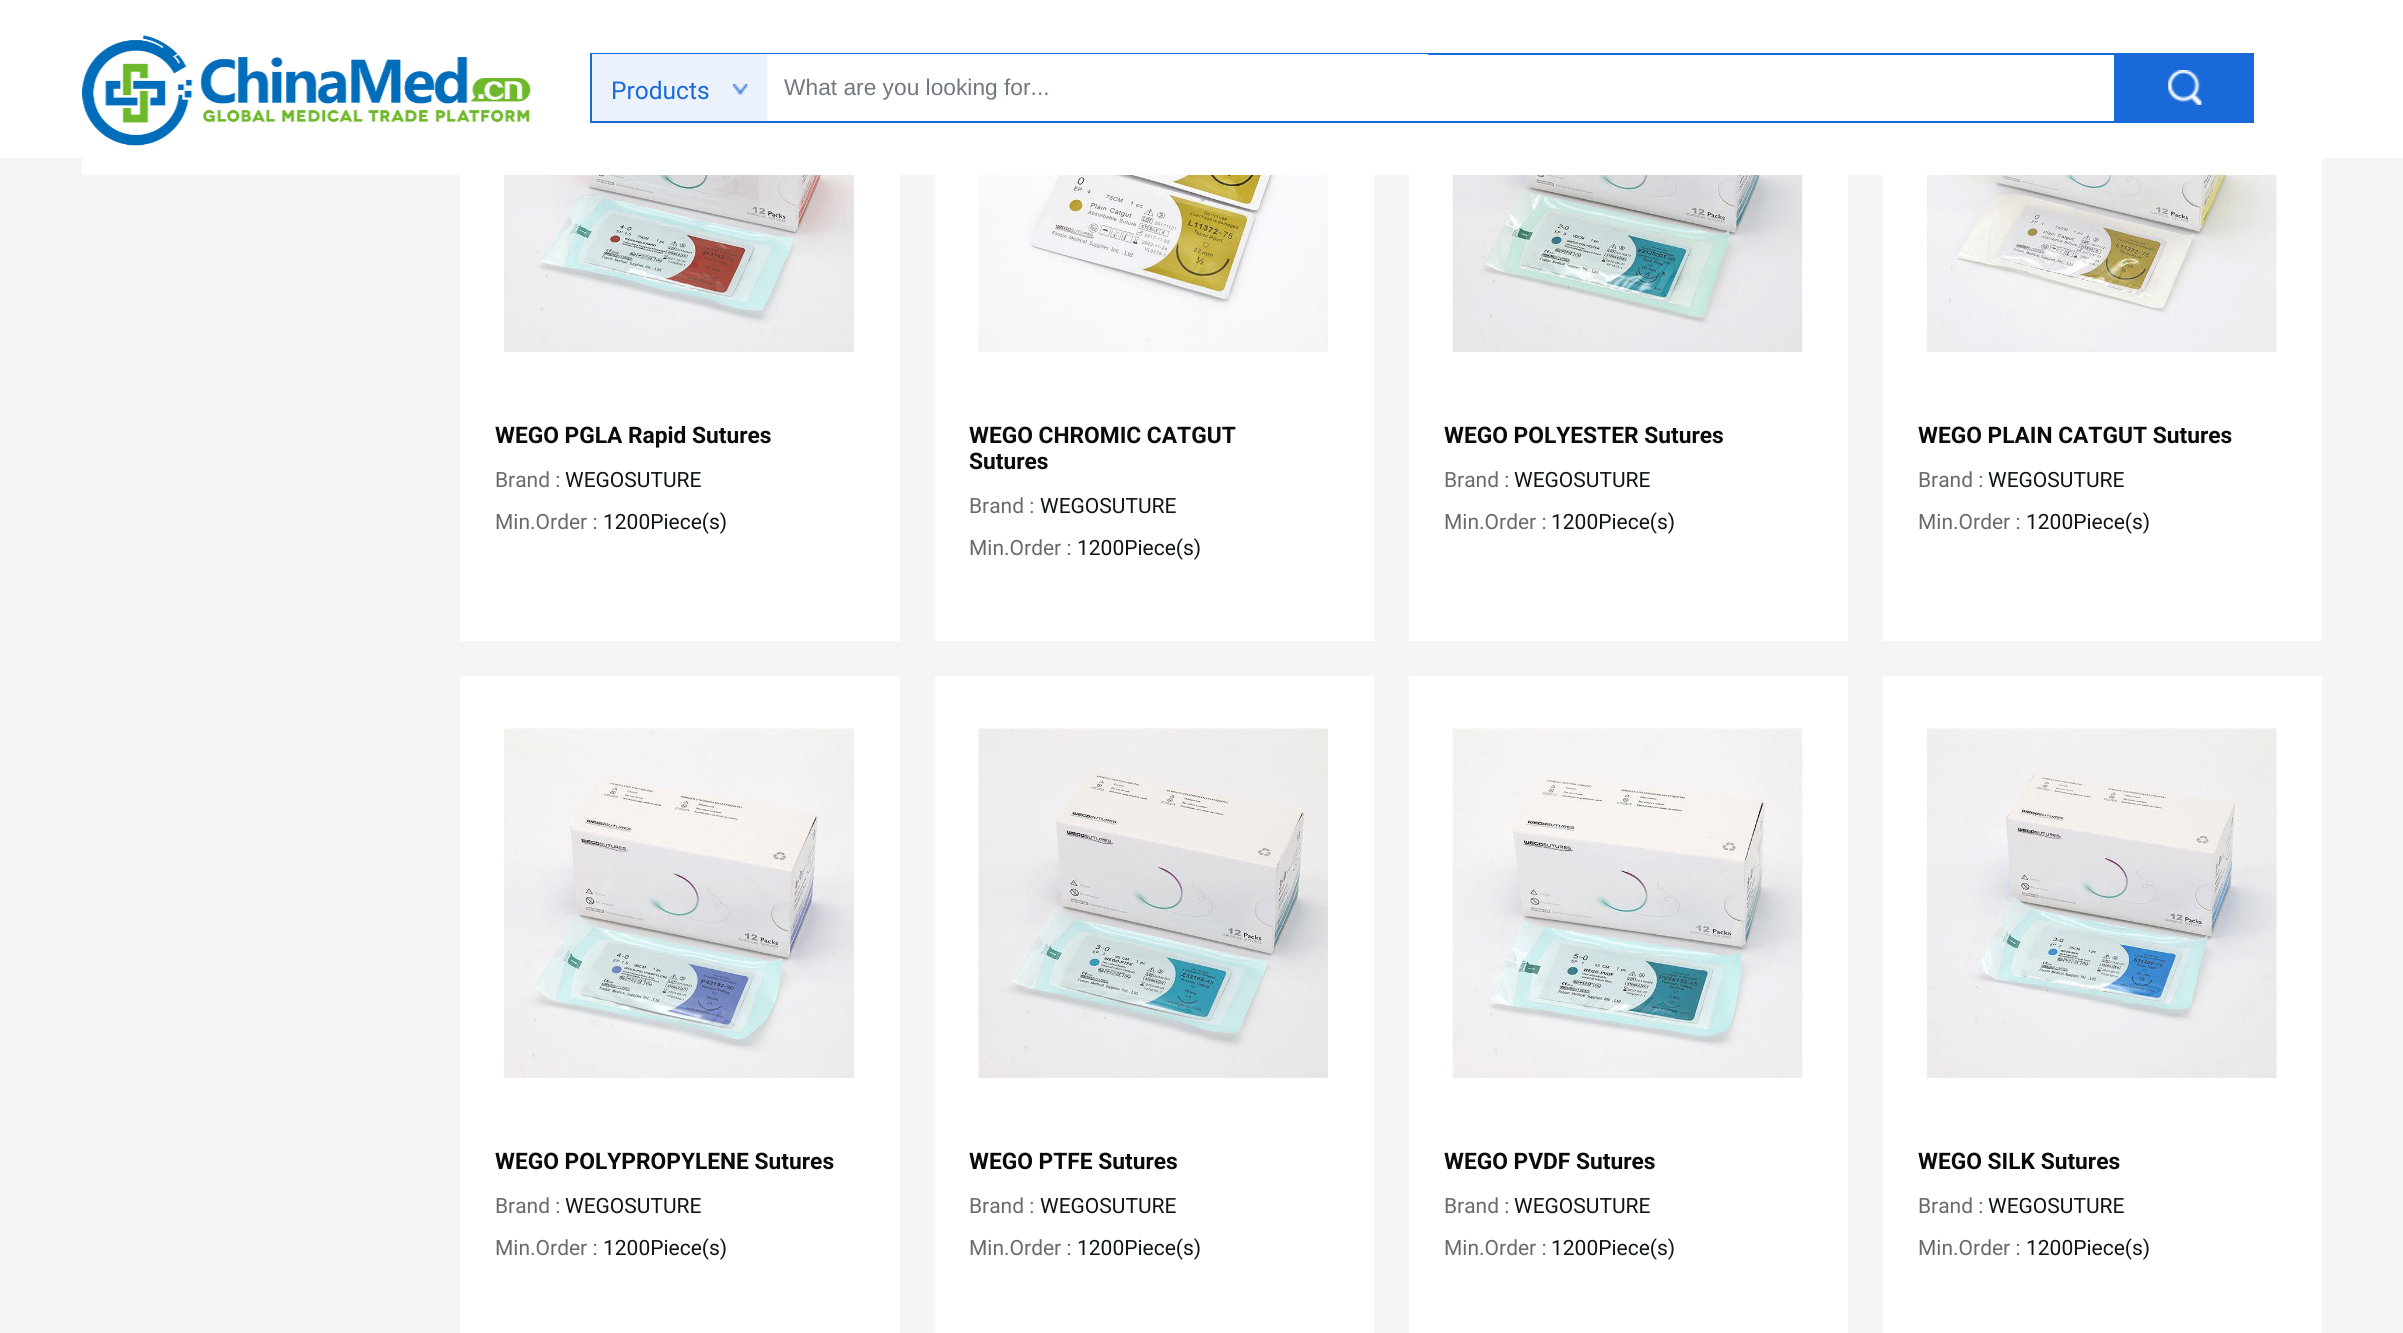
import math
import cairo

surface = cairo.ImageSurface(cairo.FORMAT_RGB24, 2403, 1333)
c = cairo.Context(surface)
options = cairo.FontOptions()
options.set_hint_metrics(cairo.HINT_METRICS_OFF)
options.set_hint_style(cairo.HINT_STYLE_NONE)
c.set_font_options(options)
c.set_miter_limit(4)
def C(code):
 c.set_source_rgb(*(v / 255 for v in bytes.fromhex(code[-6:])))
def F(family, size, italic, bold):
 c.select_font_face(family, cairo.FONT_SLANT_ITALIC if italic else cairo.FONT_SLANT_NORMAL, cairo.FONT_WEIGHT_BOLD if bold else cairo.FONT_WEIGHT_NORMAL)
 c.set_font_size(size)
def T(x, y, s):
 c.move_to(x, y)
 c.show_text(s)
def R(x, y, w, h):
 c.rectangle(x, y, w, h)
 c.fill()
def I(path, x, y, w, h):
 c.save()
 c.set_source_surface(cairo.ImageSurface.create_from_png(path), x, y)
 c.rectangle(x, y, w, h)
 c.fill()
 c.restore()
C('f5f5f5')
c.paint()
C('ffffff')
R(0,0,2403,158)
R(82,158,2240,17)
I('1.png',82,35,449,111)
C('196ad8')
R(590,53,1524,2)
R(590,121,1524,2)
R(590,53,2,70)
C('ecf2fb')
R(592,54,175,67)
F('Roboto',24.5,0,0)
C('196ad8')
T(611,99,'Products')
I('2.png',733,84,15,11)
C('ffffff')
R(767,54,661,1)
F('Liberation Sans',22.75,0,0)
C('72787f')
T(784,95,'What are you looking for...')
C('196ad8')
R(2114,53,140,70)
I('3.png',2168,70,34,35)
C('ffffff')
R(460,175,440,466)
I('4.png',504,175,350,177)
F('Roboto',22.75,0,1)
C('080a0c')
T(495,443,'WEGO PGLA Rapid Sutures')
F('Roboto',21,0,0)
C('686b6e')
T(495,487,'Brand :')
C('101518')
T(565,487,'WEGOSUTURE')
C('686b6e')
T(495,529,'Min.Order :')
C('101518')
T(603,529,'1200Piece(s)')
C('ffffff')
R(935,175,439,466)
I('5.png',978,175,350,177)
F('Roboto',22.75,0,1)
C('080a0c')
T(969,443,'WEGO CHROMIC CATGUT')
T(969,469,'Sutures')
F('Roboto',21,0,0)
C('686b6e')
T(969,513,'Brand :')
C('101518')
T(1040,513,'WEGOSUTURE')
C('686b6e')
T(969,555,'Min.Order :')
C('101518')
T(1077,555,'1200Piece(s)')
C('ffffff')
R(1409,175,439,466)
I('6.png',1452,175,351,177)
F('Roboto',22.75,0,1)
C('080a0c')
T(1444,443,'WEGO POLYESTER Sutures')
F('Roboto',21,0,0)
C('686b6e')
T(1444,487,'Brand :')
C('101518')
T(1514,487,'WEGOSUTURE')
C('686b6e')
T(1444,529,'Min.Order :')
C('101518')
T(1551,529,'1200Piece(s)')
C('ffffff')
R(1883,175,439,466)
I('7.png',1927,175,350,177)
F('Roboto',22.75,0,1)
C('080a0c')
T(1918,443,'WEGO PLAIN CATGUT Sutures')
F('Roboto',21,0,0)
C('686b6e')
T(1918,487,'Brand :')
C('101518')
T(1988,487,'WEGOSUTURE')
C('686b6e')
T(1918,529,'Min.Order :')
C('101518')
T(2026,529,'1200Piece(s)')
C('ffffff')
R(460,676,440,657)
I('8.png',504,728,350,350)
F('Roboto',22.75,0,1)
C('080a0c')
T(495,1169,'WEGO POLYPROPYLENE Sutures')
F('Roboto',21,0,0)
C('686b6e')
T(495,1213,'Brand :')
C('101518')
T(565,1213,'WEGOSUTURE')
C('686b6e')
T(495,1255,'Min.Order :')
C('101518')
T(603,1255,'1200Piece(s)')
C('ffffff')
R(935,676,439,657)
I('9.png',978,728,350,350)
F('Roboto',22.75,0,1)
C('080a0c')
T(969,1169,'WEGO PTFE Sutures')
F('Roboto',21,0,0)
C('686b6e')
T(969,1213,'Brand :')
C('101518')
T(1040,1213,'WEGOSUTURE')
C('686b6e')
T(969,1255,'Min.Order :')
C('101518')
T(1077,1255,'1200Piece(s)')
C('ffffff')
R(1409,676,439,657)
I('10.png',1452,728,351,350)
F('Roboto',22.75,0,1)
C('080a0c')
T(1444,1169,'WEGO PVDF Sutures')
F('Roboto',21,0,0)
C('686b6e')
T(1444,1213,'Brand :')
C('101518')
T(1514,1213,'WEGOSUTURE')
C('686b6e')
T(1444,1255,'Min.Order :')
C('101518')
T(1551,1255,'1200Piece(s)')
C('ffffff')
R(1883,676,439,657)
I('11.png',1927,728,350,350)
F('Roboto',22.75,0,1)
C('080a0c')
T(1918,1169,'WEGO SILK Sutures')
F('Roboto',21,0,0)
C('686b6e')
T(1918,1213,'Brand :')
C('101518')
T(1988,1213,'WEGOSUTURE')
C('686b6e')
T(1918,1255,'Min.Order :')
C('101518')
T(2026,1255,'1200Piece(s)')
surface.write_to_png('o.png')
